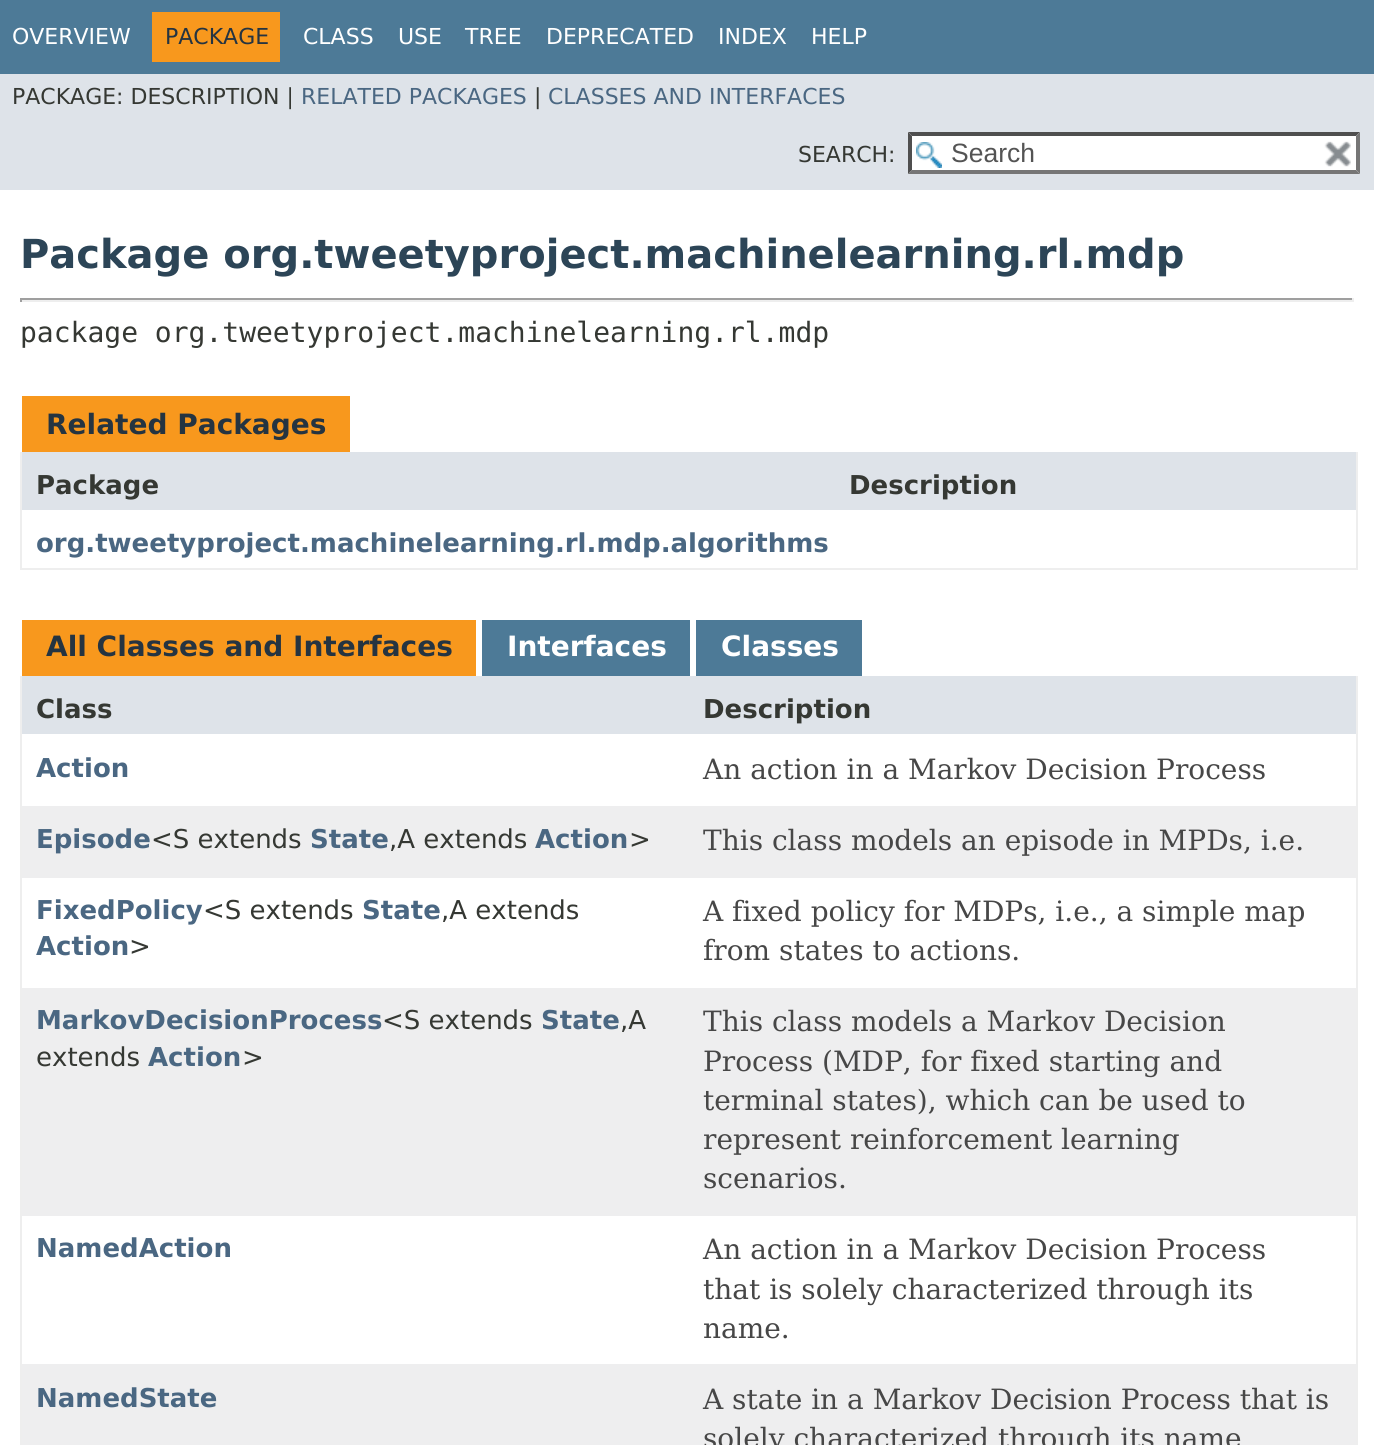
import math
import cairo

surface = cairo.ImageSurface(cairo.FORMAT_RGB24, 1374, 1445)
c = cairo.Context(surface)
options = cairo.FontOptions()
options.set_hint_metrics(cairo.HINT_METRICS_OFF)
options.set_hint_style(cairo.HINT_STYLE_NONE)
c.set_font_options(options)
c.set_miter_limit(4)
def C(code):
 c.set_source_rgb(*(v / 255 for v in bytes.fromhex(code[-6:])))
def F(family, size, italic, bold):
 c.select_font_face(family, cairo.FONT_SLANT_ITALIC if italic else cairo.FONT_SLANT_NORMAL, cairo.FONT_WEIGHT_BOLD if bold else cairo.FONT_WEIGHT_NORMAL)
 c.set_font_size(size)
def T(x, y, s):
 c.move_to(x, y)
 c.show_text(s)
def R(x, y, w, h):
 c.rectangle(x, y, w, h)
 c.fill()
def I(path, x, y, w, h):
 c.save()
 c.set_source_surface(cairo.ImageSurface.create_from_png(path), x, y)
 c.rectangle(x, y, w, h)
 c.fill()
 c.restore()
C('ffffff')
c.paint()
C('4d7a97')
R(0,0,1374,74)
F('DejaVu Sans',22,0,0)
C('ffffff')
T(12,44,'OVERVIEW')
C('f8981d')
R(152,12,128,50)
C('253441')
T(165,44,'PACKAGE')
C('ffffff')
T(303,44,'CLASS')
T(398,44,'USE')
T(465,44,'TREE')
T(546,44,'DEPRECATED')
T(718,44,'INDEX')
T(811,44,'HELP')
C('dee3e9')
R(0,74,1374,116)
C('353833')
T(12,104,'PACKAGE: DESCRIPTION |')
C('4a6782')
T(301,104,'RELATED PACKAGES')
C('353833')
T(534,104,'|')
C('4a6782')
T(548,104,'CLASSES AND INTERFACES')
C('353833')
T(798,162,'SEARCH:')
C('ffffff')
R(908,132,452,42)
I('1.png',916,142,26,26)
C('4f4f4f')
c.new_path()
c.move_to(908,132)
c.line_to(1360,132)
c.line_to(1356,136)
c.line_to(912,136)
c.close_path()
c.fill()
C('767676')
c.new_path()
c.move_to(1360,132)
c.line_to(1360,174)
c.line_to(1356,170)
c.line_to(1356,136)
c.close_path()
c.fill()
c.new_path()
c.move_to(1360,174)
c.line_to(908,174)
c.line_to(912,170)
c.line_to(1356,170)
c.close_path()
c.fill()
C('4f4f4f')
c.new_path()
c.move_to(908,174)
c.line_to(908,132)
c.line_to(912,136)
c.line_to(912,170)
c.close_path()
c.fill()
F('Liberation Sans',26.5,0,0)
C('545454')
T(951,162,'Search')
I('2.png',1324,141,27,26)
F('DejaVu Sans',40,0,1)
C('2c4557')
T(20,268,'Package org.tweetyproject.machinelearning.rl.mdp')
C('9f9f9f')
R(20,298,1334,2)
C('eeeeee')
R(1352,298,2,4)
R(20,300,1334,2)
C('9f9f9f')
R(20,298,2,4)
F('DejaVu Sans Mono',28,0,0)
C('353833')
T(20,342,'package org.tweetyproject.machinelearning.rl.mdp')
C('f8981d')
R(22,396,328,56)
F('DejaVu Sans',28,0,1)
C('253441')
T(46,434,'Related Packages')
C('eeeeee')
R(1356,452,2,118)
R(20,568,1338,2)
R(20,452,2,118)
C('dee3e9')
R(22,452,1334,58)
F('DejaVu Sans',26,0,1)
C('353833')
T(36,494,'Package')
T(849,494,'Description')
C('4a6782')
T(36,552,'org.tweetyproject.machinelearning.rl.mdp.algorithms')
C('f8981d')
R(22,620,454,56)
F('DejaVu Sans',28,0,1)
C('253441')
T(46,656,'All Classes and Interfaces')
C('4d7a97')
R(482,620,208,56)
C('ffffff')
T(507,656,'Interfaces')
C('4d7a97')
R(696,620,166,56)
C('ffffff')
T(721,656,'Classes')
C('eeeeee')
R(1356,676,2,769)
R(20,676,2,769)
C('dee3e9')
R(22,676,1334,58)
F('DejaVu Sans',26,0,1)
C('353833')
T(36,718,'Class')
T(703,718,'Description')
C('4a6782')
T(36,777,'Action')
F('DejaVu Serif',28,0,0)
C('474747')
T(703,779,'An action in a Markov Decision Process')
C('eeeeef')
R(22,806,1334,72)
F('DejaVu Sans',26,0,1)
C('4a6782')
T(36,848,'Episode')
F('DejaVu Sans',26,0,0)
C('353833')
T(151,848,'<S extends')
F('DejaVu Sans',26,0,1)
C('4a6782')
T(310,848,'State')
F('DejaVu Sans',26,0,0)
C('353833')
T(389,848,',A extends')
F('DejaVu Sans',26,0,1)
C('4a6782')
T(535,848,'Action')
F('DejaVu Sans',26,0,0)
C('353833')
T(629,848,'>')
F('DejaVu Serif',28,0,0)
C('474747')
T(703,850,'This class models an episode in MPDs, i.e.')
F('DejaVu Sans',26,0,1)
C('4a6782')
T(36,919,'FixedPolicy')
F('DejaVu Sans',26,0,0)
C('353833')
T(203,919,'<S extends')
F('DejaVu Sans',26,0,1)
C('4a6782')
T(362,919,'State')
F('DejaVu Sans',26,0,0)
C('353833')
T(441,919,',A extends')
F('DejaVu Sans',26,0,1)
C('4a6782')
T(36,955,'Action')
F('DejaVu Sans',26,0,0)
C('353833')
T(129,955,'>')
F('DejaVu Serif',28,0,0)
C('474747')
T(703,921,'A fixed policy for MDPs, i.e., a simple map')
T(703,960,'from states to actions.')
C('eeeeef')
R(22,988,1334,228)
F('DejaVu Sans',26,0,1)
C('4a6782')
T(36,1029,'MarkovDecisionProcess')
F('DejaVu Sans',26,0,0)
C('353833')
T(382,1029,'<S extends')
F('DejaVu Sans',26,0,1)
C('4a6782')
T(541,1029,'State')
F('DejaVu Sans',26,0,0)
C('353833')
T(620,1029,',A')
T(36,1066,'extends')
F('DejaVu Sans',26,0,1)
C('4a6782')
T(148,1066,'Action')
F('DejaVu Sans',26,0,0)
C('353833')
T(242,1066,'>')
F('DejaVu Serif',28,0,0)
C('474747')
T(703,1031,'This class models a Markov Decision')
T(703,1071,'Process (MDP, for fixed starting and')
T(703,1110,'terminal states), which can be used to')
T(703,1149,'represent reinforcement learning')
T(703,1188,'scenarios.')
F('DejaVu Sans',26,0,1)
C('4a6782')
T(36,1257,'NamedAction')
F('DejaVu Serif',28,0,0)
C('474747')
T(703,1259,'An action in a Markov Decision Process')
T(703,1299,'that is solely characterized through its')
T(703,1338,'name.')
C('eeeeef')
R(22,1364,1334,81)
F('DejaVu Sans',26,0,1)
C('4a6782')
T(36,1407,'NamedState')
F('DejaVu Serif',28,0,0)
C('474747')
T(703,1409,'A state in a Markov Decision Process that is')
T(703,1448,'solely characterized through its name')
surface.write_to_png('o.png')
